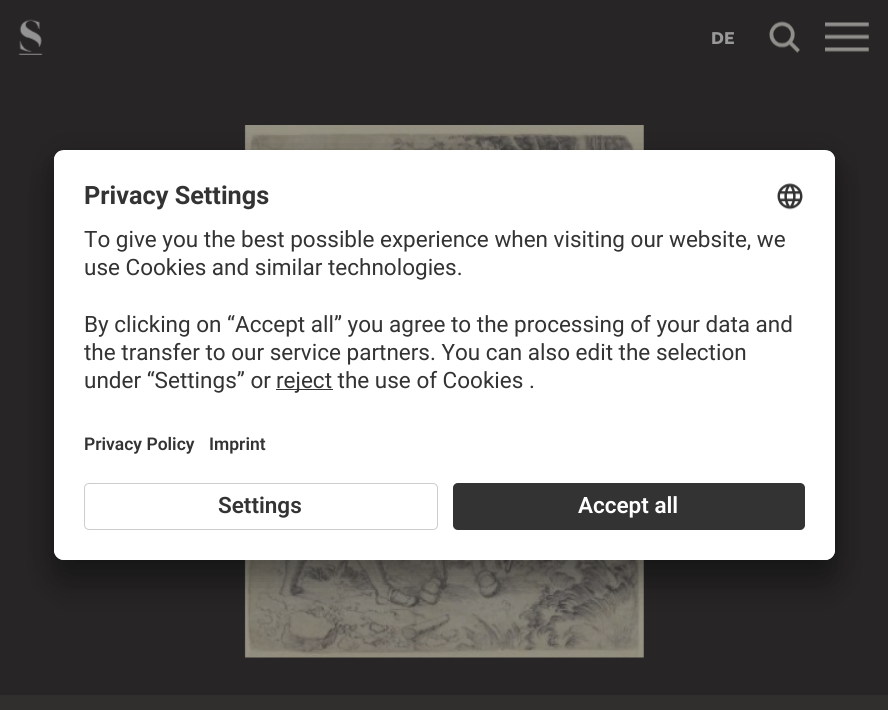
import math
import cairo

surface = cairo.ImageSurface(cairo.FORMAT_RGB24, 888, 710)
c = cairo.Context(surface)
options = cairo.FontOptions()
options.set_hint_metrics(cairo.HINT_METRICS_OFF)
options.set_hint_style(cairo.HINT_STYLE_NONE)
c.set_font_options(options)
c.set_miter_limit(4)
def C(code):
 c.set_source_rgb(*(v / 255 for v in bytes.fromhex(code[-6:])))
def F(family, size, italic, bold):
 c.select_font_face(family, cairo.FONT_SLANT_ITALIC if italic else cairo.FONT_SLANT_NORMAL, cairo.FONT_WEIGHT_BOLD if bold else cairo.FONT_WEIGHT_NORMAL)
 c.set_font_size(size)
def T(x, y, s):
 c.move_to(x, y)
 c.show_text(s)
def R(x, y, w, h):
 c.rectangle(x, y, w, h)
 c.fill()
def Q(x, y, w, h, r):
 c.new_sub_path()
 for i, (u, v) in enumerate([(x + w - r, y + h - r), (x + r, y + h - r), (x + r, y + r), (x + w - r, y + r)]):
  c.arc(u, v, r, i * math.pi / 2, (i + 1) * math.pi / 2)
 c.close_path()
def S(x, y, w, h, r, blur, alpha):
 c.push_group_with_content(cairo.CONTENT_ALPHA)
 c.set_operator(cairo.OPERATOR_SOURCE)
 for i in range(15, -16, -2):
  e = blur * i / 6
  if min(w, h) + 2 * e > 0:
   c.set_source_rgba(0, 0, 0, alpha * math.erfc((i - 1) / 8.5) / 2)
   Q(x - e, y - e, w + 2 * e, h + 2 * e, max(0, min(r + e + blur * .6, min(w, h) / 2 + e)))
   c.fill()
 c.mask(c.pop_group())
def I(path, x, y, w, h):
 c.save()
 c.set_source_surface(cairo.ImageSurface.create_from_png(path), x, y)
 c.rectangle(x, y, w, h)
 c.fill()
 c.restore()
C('312f2e')
c.paint()
C('272525')
R(0,0,888,695)
I('1.png',244,125,400,533)
I('2.png',18,19,25,36)
F('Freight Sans',19,0,1)
C('999999')
T(711,44,'DE')
I('3.png',769,21,31,32)
I('4.png',825,22,44,30)
C('000000')
S(54,175,781,410,10,17.5,.3)
S(54,156,781,410,10,16,.22)
C('ffffff')
Q(54,150,781,410,10)
c.fill()
c.save()
Q(54,150,781,410,10)
c.clip()
c.new_path()
c.move_to(64,150)
c.line_to(825,150)
c.curve_to(830.5,150,835,154.5,835,160)
c.line_to(835,473)
c.line_to(54,473)
c.line_to(54,160)
c.curve_to(54,154.5,58.5,150,64,150)
c.close_path()
c.clip()
R(54,151,781,322)
c.restore()
F('Roboto',25.25,0,1)
C('333333')
T(84,204,'Privacy Settings')
I('5.png',777,183,26,27)
F('Roboto',22.5,0,0)
T(84,247,'To give you the best possible experience when visiting our website, we')
T(84,275,'use Cookies and similar technologies.')
T(84,332,'By clicking on “Accept all” you agree to the processing of your data and')
T(84,360,'the transfer to our service partners. You can also edit the selection')
T(84,388,'under “Settings” or')
R(276,389,57,1)
T(276,388,'reject the use of Cookies .')
F('Roboto SemiBold',17.5,0,0)
T(84,450,'Privacy Policy')
T(209,450,'Imprint')
C('ffffff')
c.new_path()
c.move_to(54,473)
c.line_to(835,473)
c.line_to(835,550)
c.curve_to(835,555.5,830.5,560,825,560)
c.line_to(64,560)
c.curve_to(58.5,560,54,555.5,54,550)
c.close_path()
c.fill()
Q(84.5,483.5,353,46,4.5)
C('cdcdcd')
c.set_line_width(1)
c.stroke()
F('Roboto SemiBold',22.5,0,0)
C('333333')
T(218,513,'Settings')
Q(453,483,352,47,5)
c.fill()
Q(453.5,483.5,351,46,4.5)
c.set_source_rgba(0.208,0.208,0.208,0.25)
c.stroke()
C('ffffff')
T(578,513,'Accept all')
surface.write_to_png('o.png')
